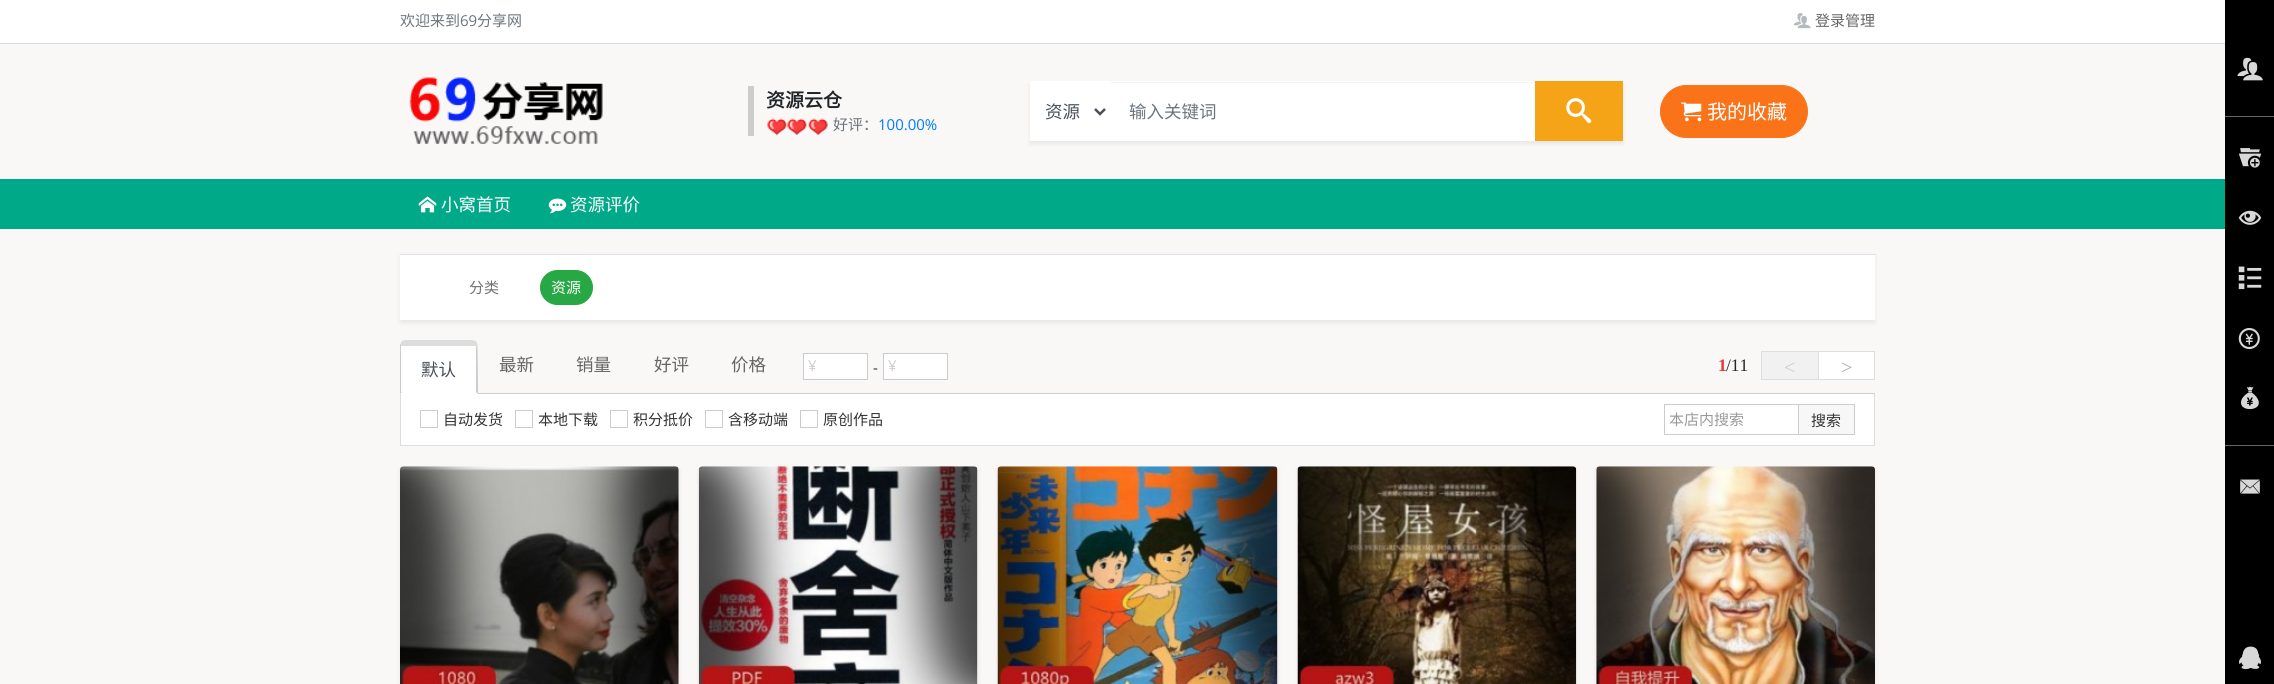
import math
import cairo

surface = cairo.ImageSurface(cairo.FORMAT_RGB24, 2274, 684)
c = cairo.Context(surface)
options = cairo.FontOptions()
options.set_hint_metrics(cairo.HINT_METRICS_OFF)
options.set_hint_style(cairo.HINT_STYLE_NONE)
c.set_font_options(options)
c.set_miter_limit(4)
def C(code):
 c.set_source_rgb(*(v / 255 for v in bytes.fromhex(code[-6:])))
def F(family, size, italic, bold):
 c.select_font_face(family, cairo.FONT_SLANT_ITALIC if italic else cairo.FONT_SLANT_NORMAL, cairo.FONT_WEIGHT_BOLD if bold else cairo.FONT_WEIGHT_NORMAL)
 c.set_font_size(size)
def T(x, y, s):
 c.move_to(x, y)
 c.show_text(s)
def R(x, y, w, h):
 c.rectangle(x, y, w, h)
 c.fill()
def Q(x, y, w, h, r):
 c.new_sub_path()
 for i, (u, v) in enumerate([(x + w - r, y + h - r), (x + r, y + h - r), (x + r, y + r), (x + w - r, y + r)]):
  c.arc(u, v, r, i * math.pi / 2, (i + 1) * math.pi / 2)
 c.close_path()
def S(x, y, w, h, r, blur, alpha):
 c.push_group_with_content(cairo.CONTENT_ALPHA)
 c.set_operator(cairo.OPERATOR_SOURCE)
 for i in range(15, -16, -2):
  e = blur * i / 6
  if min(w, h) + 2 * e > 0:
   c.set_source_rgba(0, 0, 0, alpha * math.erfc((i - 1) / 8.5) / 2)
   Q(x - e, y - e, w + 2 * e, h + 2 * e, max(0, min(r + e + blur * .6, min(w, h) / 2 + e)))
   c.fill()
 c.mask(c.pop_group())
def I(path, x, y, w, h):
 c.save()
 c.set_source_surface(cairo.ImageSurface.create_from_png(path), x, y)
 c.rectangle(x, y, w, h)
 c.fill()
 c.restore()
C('f9f8f7')
c.paint()
C('ffffff')
R(0,0,2225,43)
C('dddddd')
R(0,43,2225,1)
F('Noto Sans CJK SC',15,0,0)
C('6c757d')
T(400,26,'欢迎来到')
F('Open Sans',15,0,0)
T(460,26,'69')
F('Noto Sans CJK SC',15,0,0)
T(477,26,'分享网')
I('1.png',1793,13,18,16)
C('666666')
T(1815,26,'登录管理')
C('000000')
R(2225,0,49,684)
I('2.png',2237,57,26,24)
C('666666')
R(2225,116,49,1)
I('3.png',2238,148,24,20)
I('4.png',2238,210,24,15)
I('5.png',2238,266,24,24)
I('6.png',2238,328,22,22)
I('7.png',2241,386,18,24)
R(2225,445,49,1)
I('8.png',2240,479,20,15)
I('9.png',2239,646,22,24)
I('10.png',409,77,194,67)
C('cccccc')
R(748,86,6,50)
F('Noto Sans CJK SC',19,0,1)
C('212529')
T(766,107,'资源云仓')
I('11.png',767,118,61,18)
F('Noto Sans CJK SC',15,0,0)
C('6c757d')
T(833,130,'好评：')
F('Open Sans',15,0,0)
C('007bff')
T(878,130,'100.00%')
C('000000')
S(1030,84,593,60,0,2.5,.07)
C('ffffff')
R(1030,81,80,60)
c.new_path()
c.move_to(1095,109)
c.line_to(1100,114)
c.line_to(1105,109)
C('495057')
c.set_line_width(2.5)
c.stroke()
F('Noto Sans CJK SC',17.5,0,0)
T(1045,118,'资源')
C('ffffff')
R(1110,83,425,57)
R(1109,81,427,1)
R(1109,140,427,1)
C('6c757d')
T(1129,118,'输入关键词')
C('f5a418')
R(1535,81,88,60)
I('12.png',1566,98,26,26)
C('fb7319')
Q(1660.5,85.5,147,52,26)
c.fill_preserve()
c.set_line_width(1)
c.stroke()
I('13.png',1681,102,21,20)
F('Noto Sans CJK SC',20,0,0)
C('ffffff')
T(1707,119,'我的收藏')
C('00aa88')
R(0,179,2225,50)
I('14.png',418,196,19,17)
F('Noto Sans CJK SC',17.5,0,0)
C('ffffff')
T(441,211,'小窝首页')
I('15.png',548,198,19,16)
T(570,211,'资源评价')
C('000000')
S(400,256,1475,67,0,2.5,.07)
C('ffffff')
R(400,255,1475,65)
F('Noto Sans CJK SC',15,0,0)
C('6f7174')
T(469,293,'分类')
C('dee2e6')
R(400,254,1476,1)
C('28a745')
Q(540.5,270.5,52,34,17)
c.fill_preserve()
c.stroke()
C('ffffff')
T(551,293,'资源')
C('cccccc')
R(478,393,1397,1)
C('ffffff')
c.new_path()
c.move_to(405,340)
c.line_to(473,340)
c.curve_to(476,340,478,342,478,345)
c.line_to(478,394)
c.line_to(400,394)
c.line_to(400,345)
c.curve_to(400,342,402,340,405,340)
c.close_path()
c.fill()
C('dddddd')
c.new_path()
c.move_to(405,340)
c.curve_to(403,340,401,341,401,343)
c.line_to(401,346)
c.line_to(476,346)
c.line_to(476,348)
c.line_to(477,342)
c.curve_to(476,341,474,340,472,340)
c.close_path()
c.fill()
C('cccccc')
c.new_path()
c.move_to(477,342)
c.curve_to(478,344,478,388,478,394)
c.line_to(476,392)
c.line_to(476,348)
c.close_path()
c.fill()
c.new_path()
c.move_to(400,394)
c.line_to(402,392)
c.line_to(401,392)
c.line_to(401,346)
c.line_to(401,343)
c.line_to(400,345)
c.close_path()
c.fill()
F('Noto Sans CJK SC',17.5,0,0)
C('495057')
T(421,376,'默认')
C('666666')
T(499,371,'最新')
T(576,371,'销量')
T(654,371,'好评')
T(731,371,'价格')
C('ffffff')
c.rectangle(803.5,353.5,64,26)
c.fill_preserve()
C('cccccc')
c.stroke()
F('Open Sans',15,0,0)
T(808,371,'¥')
C('333333')
T(873,373,'-')
C('ffffff')
c.rectangle(883.5,353.5,64,26)
c.fill_preserve()
C('cccccc')
c.stroke()
T(888,371,'¥')
F('Liberation Serif',17.5,0,1)
C('e4393c')
T(1718,371,'1')
F('Liberation Serif',17.5,0,0)
C('212529')
T(1726,371,'/11')
C('f1f1f1')
c.rectangle(1761.5,351.5,57,28)
c.fill_preserve()
C('dddddd')
c.stroke()
F('Liberation Serif',20,0,0)
C('cccccc')
T(1784,374,'<')
C('ffffff')
c.rectangle(1818.5,351.5,56,28)
c.fill_preserve()
C('dddddd')
c.stroke()
C('aaaaaa')
T(1841,374,'>')
C('ffffff')
R(401,394,1473,51)
C('dddddd')
R(1874,394,1,52)
R(400,445,1475,1)
R(400,394,1,52)
c.rectangle(420.5,410.5,17,17)
C('cccccc')
c.stroke()
F('Noto Sans CJK SC',15,0,0)
C('333333')
T(443,425,'自动发货')
c.rectangle(515.5,410.5,17,17)
C('cccccc')
c.stroke()
C('333333')
T(538,425,'本地下载')
c.rectangle(610.5,410.5,17,17)
C('cccccc')
c.stroke()
C('333333')
T(633,425,'积分抵价')
c.rectangle(705.5,410.5,17,17)
C('cccccc')
c.stroke()
C('333333')
T(728,425,'含移动端')
c.rectangle(800.5,410.5,17,17)
C('cccccc')
c.stroke()
C('333333')
T(823,425,'原创作品')
c.rectangle(1664.5,404.5,134,30)
C('cccccc')
c.stroke()
C('999999')
T(1669,425,'本店内搜索')
C('f7f7f7')
c.rectangle(1798.5,404.5,56,30)
c.fill_preserve()
C('cccccc')
c.stroke()
C('333333')
T(1811,426,'搜索')
C('000000')
S(400,469,279,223,0,2.5,.07)
C('ffffff')
R(400,466,279,218)
I('16.png',400,466,279,218)
C('000000')
S(699,469,279,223,0,2.5,.07)
C('ffffff')
R(699,466,279,218)
I('17.png',698,466,280,218)
C('000000')
S(998,469,280,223,0,2.5,.07)
C('ffffff')
R(998,466,280,218)
I('18.png',997,466,281,218)
C('000000')
S(1298,469,278,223,0,2.5,.07)
C('ffffff')
R(1298,466,278,2)
I('19.png',1297,466,280,218)
C('000000')
S(1596,469,279,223,0,2.5,.07)
C('ffffff')
R(1596,466,279,218)
I('20.png',1596,466,279,218)
surface.write_to_png('o.png')
